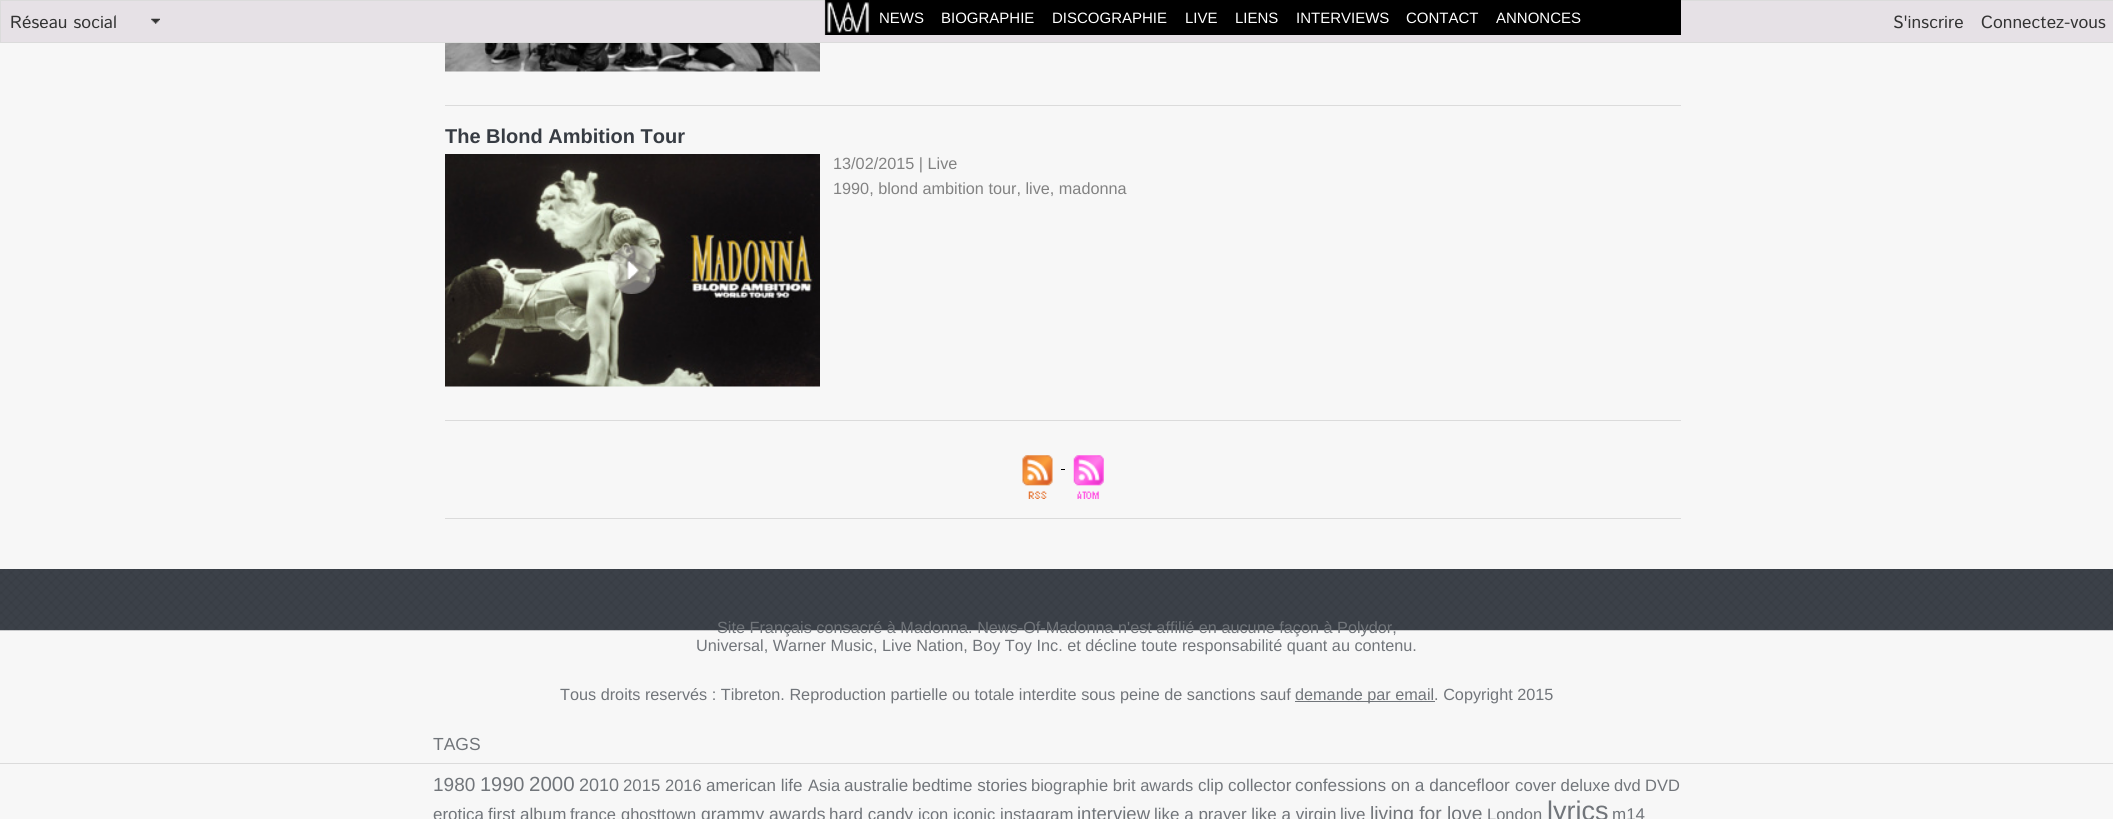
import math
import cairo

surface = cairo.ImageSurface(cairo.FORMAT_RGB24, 2113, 819)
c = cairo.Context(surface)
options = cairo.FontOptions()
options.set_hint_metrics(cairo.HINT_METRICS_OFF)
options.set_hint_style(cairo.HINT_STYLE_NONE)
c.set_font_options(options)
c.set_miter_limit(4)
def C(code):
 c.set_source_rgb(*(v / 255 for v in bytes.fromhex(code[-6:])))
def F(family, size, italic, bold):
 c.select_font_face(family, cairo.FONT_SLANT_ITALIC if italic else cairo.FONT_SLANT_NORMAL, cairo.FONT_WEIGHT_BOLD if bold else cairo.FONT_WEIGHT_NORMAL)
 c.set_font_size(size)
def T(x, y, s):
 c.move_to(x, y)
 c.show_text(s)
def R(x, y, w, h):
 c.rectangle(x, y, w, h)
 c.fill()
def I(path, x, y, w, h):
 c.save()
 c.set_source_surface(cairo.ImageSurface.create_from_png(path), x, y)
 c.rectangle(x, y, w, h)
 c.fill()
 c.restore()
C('f7f7f7')
c.paint()
C('e6e1e6')
c.rectangle(.5,.5,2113,42)
c.fill_preserve()
C('dbdbdb')
c.set_line_width(1)
c.stroke()
I('1.png',824,0,46,35)
C('000000')
R(870,0,811,35)
F('Liberation Sans',15,0,0)
C('ffffff')
T(879,23,'NEWS')
T(941,23,'BIOGRAPHIE')
T(1052,23,'DISCOGRAPHIE')
T(1185,23,'LIVE')
T(1235,23,'LIENS')
T(1296,23,'INTERVIEWS')
T(1406,23,'CONTACT')
T(1496,23,'ANNONCES')
I('2.png',151,18,9,6)
F('Istok Web',17.5,0,0)
C('333333')
T(10,28,'Réseau social')
T(1893,28,'S\'inscrire')
T(1981,28,'Connectez-vous')
C('dbdbdb')
R(445,105,1236,1)
I('3.png',445,43,375,29)
R(445,420,1236,1)
F('Liberation Sans',20,0,1)
C('373c43')
T(445,143,'The Blond Ambition Tour')
I('4.png',445,154,375,233)
I('5.png',608,245,48,49)
F('Liberation Sans',16.25,0,0)
C('828282')
T(833,169,'13/02/2015 | Live')
T(833,194,'1990, blond ambition tour, live, madonna')
C('dbdbdb')
R(445,518,1236,1)
I('6.png',1022,455,31,44)
C('000000')
R(1061,469,4,1)
I('7.png',1073,455,31,44)
I('8.png',0,569,2113,62)
C('71757a')
T(717,633,'Site Français consacré à Madonna. News-Of-Madonna n\'est affilié en aucune façon à Polydor,')
T(696,651,'Universal, Warner Music, Live Nation, Boy Toy Inc. et décline toute responsabilité quant au contenu.')
T(560,700,'Tous droits reservés : Tibreton. Reproduction partielle ou totale interdite sous peine de sanctions sauf')
R(1295,701,140,1)
T(1295,700,'demande par email. Copyright 2015')
C('dbdbdb')
R(0,763,2113,1)
F('Liberation Sans',17.5,0,0)
C('71757a')
T(433,750,'TAGS')
F('Liberation Sans',19,0,0)
T(433,791,'1980')
F('Liberation Sans',20,0,0)
T(480,791,'1990')
F('Liberation Sans',20.5,0,0)
T(529,791,'2000')
F('Liberation Sans',18,0,0)
T(579,791,'2010')
F('Liberation Sans',16.75,0,0)
T(623,791,'2015')
F('Liberation Sans',16.5,0,0)
T(665,791,'2016')
F('Liberation Sans',17,0,0)
T(706,791,'american life')
F('Liberation Sans',16.5,0,0)
T(808,791,'Asia')
F('Liberation Sans',17,0,0)
T(844,791,'australie')
T(912,791,'bedtime stories')
F('Liberation Sans',16.5,0,0)
T(1031,791,'biographie brit awards')
F('Liberation Sans',17,0,0)
T(1198,791,'clip')
T(1228,791,'collector')
F('Liberation Sans',17.25,0,0)
T(1295,791,'confessions on a dancefloor')
F('Liberation Sans',16.75,0,0)
T(1515,791,'cover deluxe')
F('Liberation Sans',16.5,0,0)
T(1614,791,'dvd')
T(1645,791,'DVD')
F('Liberation Sans',17,0,0)
T(433,820,'erotica')
T(488,820,'first album')
F('Liberation Sans',16.5,0,0)
T(570,820,'france')
T(621,820,'ghosttown')
F('Liberation Sans',17.5,0,0)
T(701,820,'grammy awards')
F('Liberation Sans',17,0,0)
T(829,820,'hard candy')
F('Liberation Sans',16.5,0,0)
T(918,820,'icon')
T(953,820,'iconic')
F('Liberation Sans',16.75,0,0)
T(1000,820,'instagram')
F('Liberation Sans',18.5,0,0)
T(1077,820,'interview')
F('Liberation Sans',17,0,0)
T(1154,820,'like a prayer like a virgin')
T(1340,820,'live')
F('Liberation Sans',19.25,0,0)
T(1370,820,'living for love')
F('Liberation Sans',16.5,0,0)
T(1487,820,'London')
F('Liberation Sans',27,0,0)
T(1547,820,'lyrics')
F('Liberation Sans',17,0,0)
T(1612,820,'m14')
surface.write_to_png('o.png')
